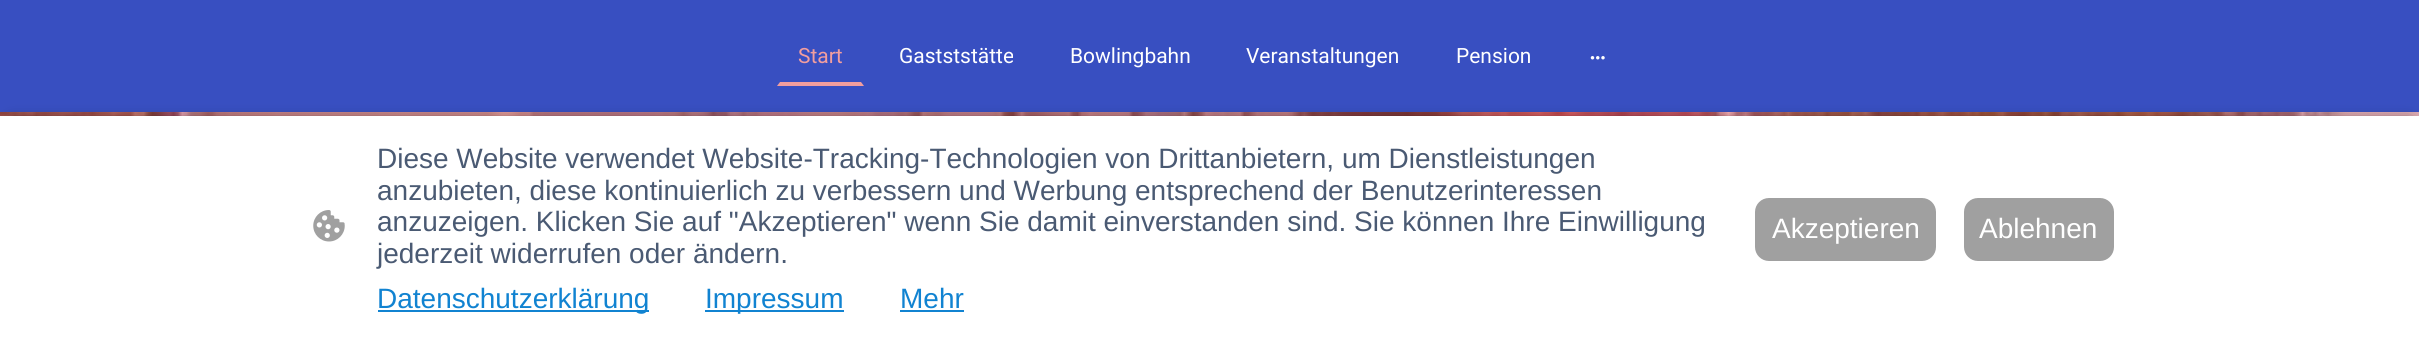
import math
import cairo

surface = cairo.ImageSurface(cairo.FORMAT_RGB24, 2419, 343)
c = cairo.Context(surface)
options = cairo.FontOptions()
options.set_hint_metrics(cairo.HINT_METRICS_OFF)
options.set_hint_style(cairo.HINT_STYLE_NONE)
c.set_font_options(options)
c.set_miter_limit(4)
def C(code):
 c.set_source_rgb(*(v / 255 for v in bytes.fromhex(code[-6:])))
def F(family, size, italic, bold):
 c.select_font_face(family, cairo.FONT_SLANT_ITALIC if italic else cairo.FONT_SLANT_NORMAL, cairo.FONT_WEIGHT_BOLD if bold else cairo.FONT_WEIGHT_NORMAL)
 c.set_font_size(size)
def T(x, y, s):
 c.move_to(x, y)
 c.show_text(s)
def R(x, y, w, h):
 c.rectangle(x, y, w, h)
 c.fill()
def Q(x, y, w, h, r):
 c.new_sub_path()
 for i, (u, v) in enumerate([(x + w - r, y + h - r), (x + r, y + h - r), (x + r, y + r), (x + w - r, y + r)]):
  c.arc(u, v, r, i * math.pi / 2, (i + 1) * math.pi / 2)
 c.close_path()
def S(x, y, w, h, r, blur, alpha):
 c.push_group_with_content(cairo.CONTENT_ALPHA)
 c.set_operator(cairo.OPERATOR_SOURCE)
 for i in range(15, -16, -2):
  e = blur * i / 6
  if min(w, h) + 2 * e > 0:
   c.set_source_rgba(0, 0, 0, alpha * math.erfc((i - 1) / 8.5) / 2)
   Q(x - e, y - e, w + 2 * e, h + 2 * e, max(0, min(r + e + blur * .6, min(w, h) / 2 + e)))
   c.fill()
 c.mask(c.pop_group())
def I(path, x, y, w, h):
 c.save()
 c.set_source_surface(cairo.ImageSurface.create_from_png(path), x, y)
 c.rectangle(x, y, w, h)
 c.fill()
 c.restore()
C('384fc1')
c.paint()
C('f29e9e')
c.new_path()
c.move_to(864,86)
c.line_to(777,86)
c.line_to(780,82)
c.line_to(861,82)
c.close_path()
c.fill()
F('Roboto',21,0,0)
T(798,63,'Start')
c.save()
c.rectangle(900,44,113,24)
c.clip()
C('ffffff')
T(899,63,'Gastststätte')
c.restore()
C('ffffff')
T(1070,63,'Bowlingbahn')
T(1246,63,'Veranstaltungen')
T(1456,63,'Pension')
I('1.png',1590,56,15,4)
I('2.png',0,112,2419,4)
C('000000')
S(11,121,2399,206,0,7,.63)
C('ffffff')
R(0,116,2419,227)
I('3.png',313,210,32,32)
F('Liberation Sans',28,0,0)
C('4a5a73')
T(377,168,'Diese Website verwendet Website-Tracking-Technologien von Drittanbietern, um Dienstleistungen')
T(377,200,'anzubieten, diese kontinuierlich zu verbessern und Werbung entsprechend der Benutzerinteressen')
T(377,231,'anzuzeigen. Klicken Sie auf "Akzeptieren" wenn Sie damit einverstanden sind. Sie können Ihre Einwilligung')
T(377,263,'jederzeit widerrufen oder ändern.')
C('1183d1')
R(378,310,271,2)
T(377,308,'Datenschutzerklärung')
R(705,310,139,2)
T(705,308,'Impressum')
T(900,308,'Mehr')
R(900,310,64,2)
C('a0a0a0')
Q(1756,199,179,61,13)
c.fill_preserve()
c.stroke()
C('ffffff')
T(1772,238,'Akzeptieren')
C('a0a0a0')
Q(1965,199,148,61,13)
c.fill_preserve()
c.stroke()
C('ffffff')
T(1979,238,'Ablehnen')
surface.write_to_png('o.png')
